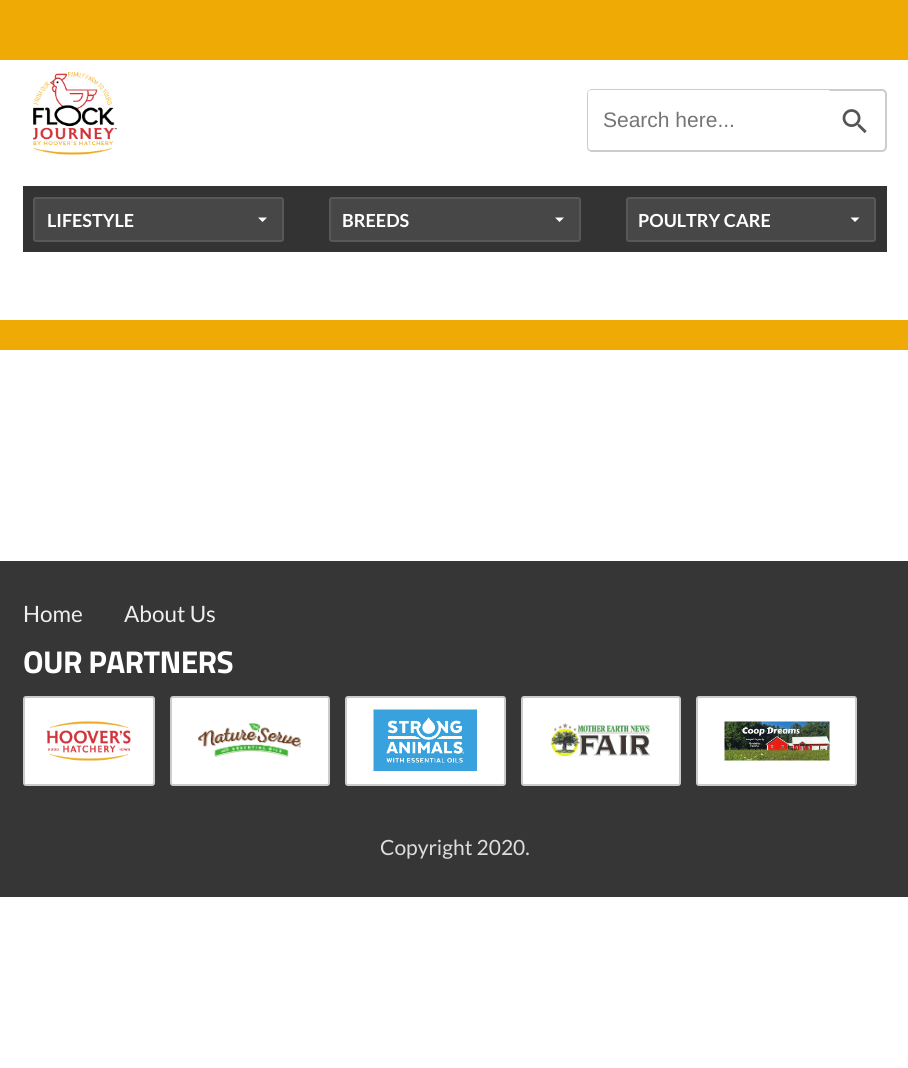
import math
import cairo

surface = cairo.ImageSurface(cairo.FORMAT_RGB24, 908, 1068)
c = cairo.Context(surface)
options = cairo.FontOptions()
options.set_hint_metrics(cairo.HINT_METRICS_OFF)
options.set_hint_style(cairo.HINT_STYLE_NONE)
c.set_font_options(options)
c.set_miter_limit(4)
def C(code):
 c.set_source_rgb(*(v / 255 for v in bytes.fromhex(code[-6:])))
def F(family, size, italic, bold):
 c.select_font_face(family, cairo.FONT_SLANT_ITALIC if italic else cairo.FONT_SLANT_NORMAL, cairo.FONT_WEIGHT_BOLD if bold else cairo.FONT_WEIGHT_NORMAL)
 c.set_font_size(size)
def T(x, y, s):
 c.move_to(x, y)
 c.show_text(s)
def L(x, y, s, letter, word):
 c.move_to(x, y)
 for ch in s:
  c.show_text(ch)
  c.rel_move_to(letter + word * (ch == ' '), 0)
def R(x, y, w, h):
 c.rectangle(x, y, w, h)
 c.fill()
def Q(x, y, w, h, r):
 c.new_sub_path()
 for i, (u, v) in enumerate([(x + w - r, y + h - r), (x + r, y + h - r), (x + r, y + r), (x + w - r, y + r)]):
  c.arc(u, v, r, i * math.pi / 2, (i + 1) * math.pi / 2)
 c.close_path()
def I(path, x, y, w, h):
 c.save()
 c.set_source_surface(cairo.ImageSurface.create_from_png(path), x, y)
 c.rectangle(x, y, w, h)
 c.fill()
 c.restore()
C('ffffff')
c.paint()
C('efaa05')
R(0,0,908,60)
I('1.png',33,72,84,83)
Q(588,90,298,61,4)
C('cccccc')
c.stroke()
C('ffffff')
Q(588,90,243,60,3)
c.fill()
F('Liberation Sans',21,0,0)
C('757575')
T(603,127,'Search here...')
I('2.png',842,109,25,25)
C('333333')
R(23,186,864,66)
C('474747')
Q(34,198,249,43,2)
c.fill_preserve()
C('585858')
c.stroke()
F('Lato',18,0,1)
C('ffffff')
T(47,227,'LIFESTYLE')
c.new_path()
c.move_to(258,217.5)
c.line_to(267,217.5)
c.line_to(262.5,222)
c.close_path()
c.fill()
C('474747')
Q(330,198,250,43,2)
c.fill_preserve()
C('585858')
c.stroke()
C('ffffff')
T(342,227,'BREEDS')
c.new_path()
c.move_to(555,217.5)
c.line_to(564,217.5)
c.line_to(559.5,222)
c.close_path()
c.fill()
C('474747')
Q(627,198,248,43,2)
c.fill_preserve()
C('585858')
c.stroke()
C('ffffff')
T(638,227,'POULTRY CARE')
c.new_path()
c.move_to(850.5,217.5)
c.line_to(859.5,217.5)
c.line_to(855,222)
c.close_path()
c.fill()
C('efaa05')
R(0,320,908,30)
C('363636')
R(0,561,908,336)
F('Lato',22.5,0,0)
C('eeeeee')
T(23,622,'Home')
T(124,622,'About Us')
F('Titillium Web',31.5,0,1)
C('ffffff')
L(23,673,'OUR PARTNERS',-.6,0)
Q(24,697,130,88,2)
c.fill_preserve()
C('cccccc')
c.stroke()
I('3.png',46,721,85,40)
C('ffffff')
Q(171,697,158,88,2)
c.fill_preserve()
C('cccccc')
c.stroke()
I('4.png',198,723,104,35)
C('ffffff')
Q(346,697,159,88,2)
c.fill_preserve()
C('cccccc')
c.stroke()
I('5.png',373,709,104,62)
C('ffffff')
Q(522,697,158,88,2)
c.fill_preserve()
C('cccccc')
c.stroke()
I('6.png',550,723,101,34)
C('ffffff')
Q(697,697,159,88,2)
c.fill_preserve()
C('cccccc')
c.stroke()
I('7.png',724,721,106,40)
F('Lato',21,0,0)
C('dddddd')
T(380,855,'Copyright 2020.')
surface.write_to_png('o.png')
